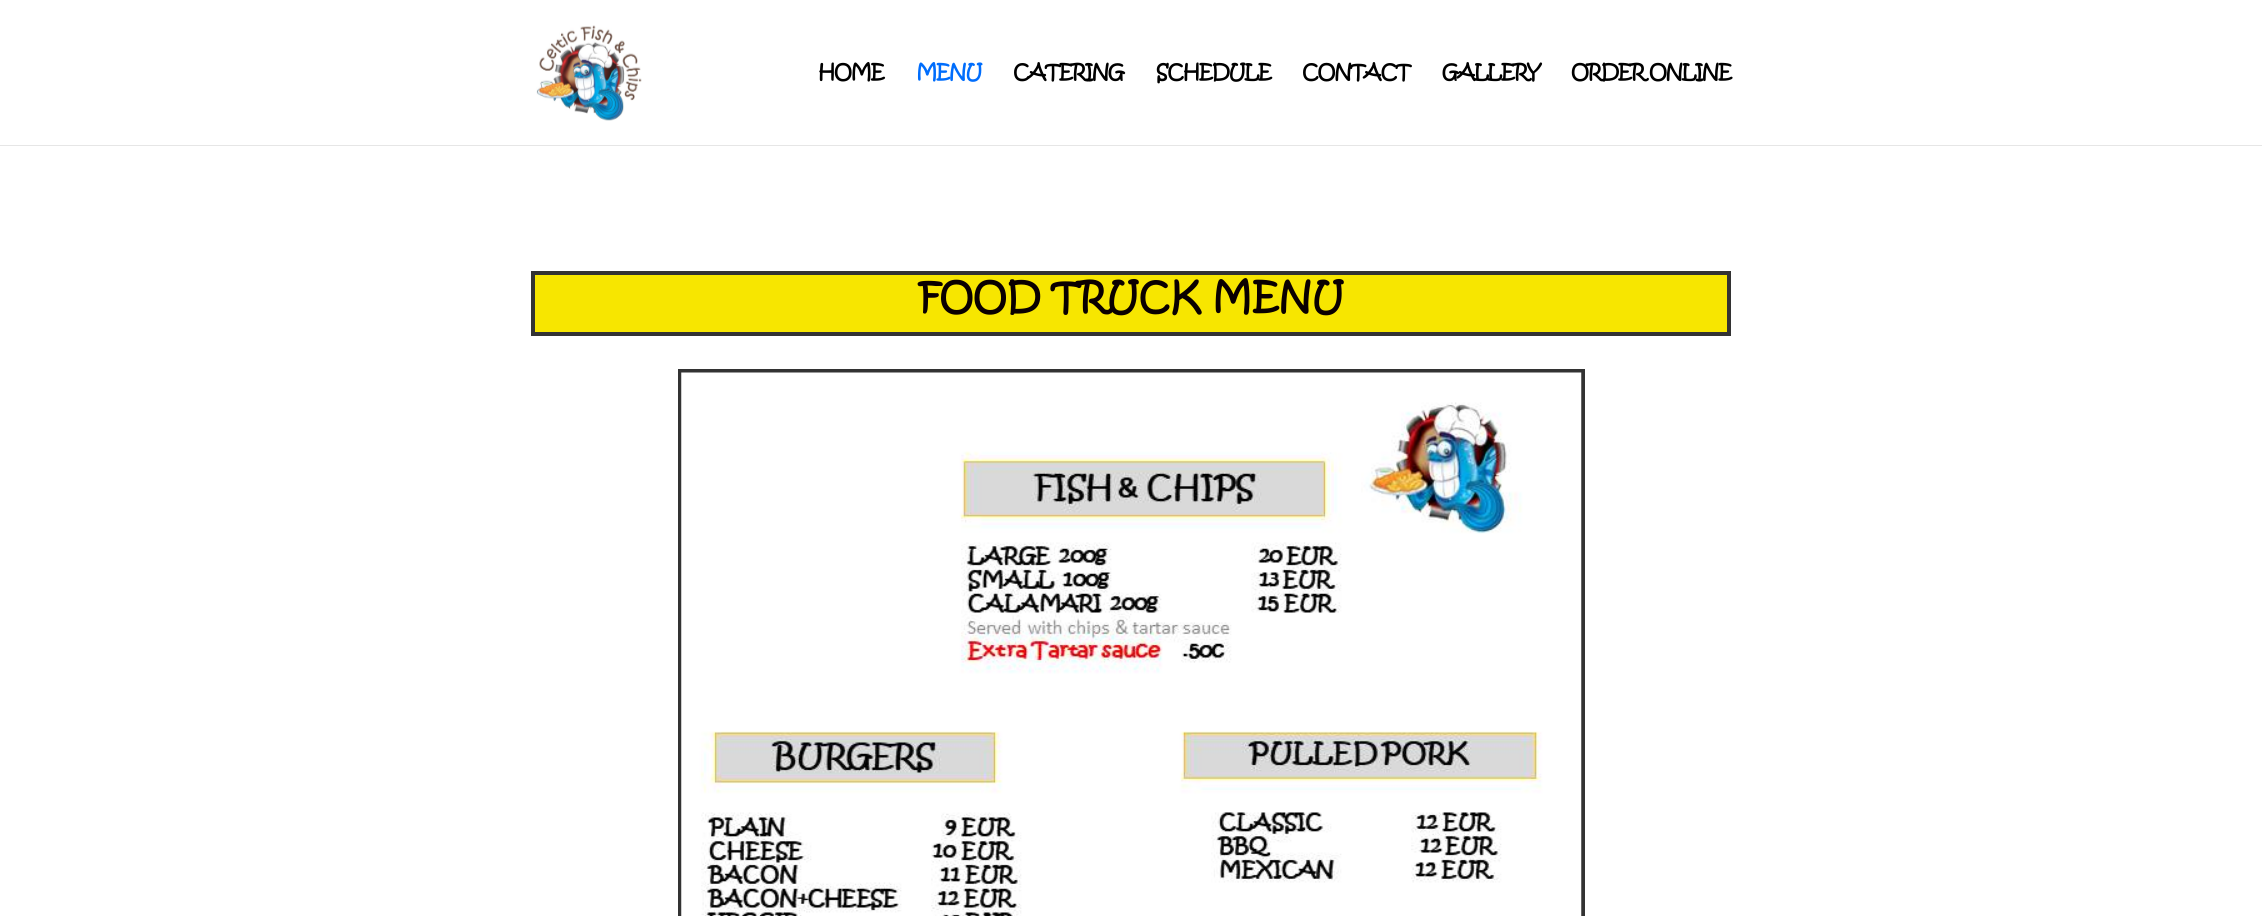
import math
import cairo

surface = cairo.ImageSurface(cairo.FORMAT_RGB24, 2262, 916)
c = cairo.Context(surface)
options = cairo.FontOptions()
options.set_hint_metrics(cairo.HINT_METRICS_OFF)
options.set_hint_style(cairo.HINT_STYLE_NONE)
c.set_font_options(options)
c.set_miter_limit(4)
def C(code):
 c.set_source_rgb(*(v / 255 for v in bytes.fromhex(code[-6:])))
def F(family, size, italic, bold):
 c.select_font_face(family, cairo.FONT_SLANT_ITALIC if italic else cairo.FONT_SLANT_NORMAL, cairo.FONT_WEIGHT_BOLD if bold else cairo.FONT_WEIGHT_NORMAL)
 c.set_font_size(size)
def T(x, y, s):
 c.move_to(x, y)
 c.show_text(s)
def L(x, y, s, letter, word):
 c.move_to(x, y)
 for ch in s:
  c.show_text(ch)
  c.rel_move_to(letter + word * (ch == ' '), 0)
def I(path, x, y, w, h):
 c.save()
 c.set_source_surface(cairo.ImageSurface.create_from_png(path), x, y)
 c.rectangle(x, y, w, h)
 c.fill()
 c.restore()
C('ffffff')
c.paint()
C('e6e6e6')
c.new_path()
c.move_to(0,145)
c.line_to(0,146)
c.line_to(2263,146)
c.line_to(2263,1)
c.line_to(2262,1)
c.line_to(2262,145)
c.close_path()
c.fill()
I('1.png',536,25,106,96)
F('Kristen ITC',20,0,1)
C('000000')
L(818,79,'HOME',-1.25,0)
C('006dfc')
L(916,79,'MENU',-1.25,0)
C('000000')
L(1013,79,'CATERING',-1.25,0)
L(1156,79,'SCHEDULE',-1.25,0)
L(1302,79,'CONTACT',-1.25,0)
L(1442,79,'GALLERY',-1.25,0)
L(1571,79,'ORDER ONLINE',-1.25,0)
C('f7e600')
c.rectangle(533,273,1196,61)
c.fill_preserve()
C('333333')
c.set_line_width(4)
c.stroke()
F('Kristen ITC',37.5,0,1)
C('0a0000')
T(919,310,'FOOD TRUCK MENU')
c.rectangle(680,371,903,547)
C('333333')
c.stroke()
I('2.png',681,372,901,544)
surface.write_to_png('o.png')
